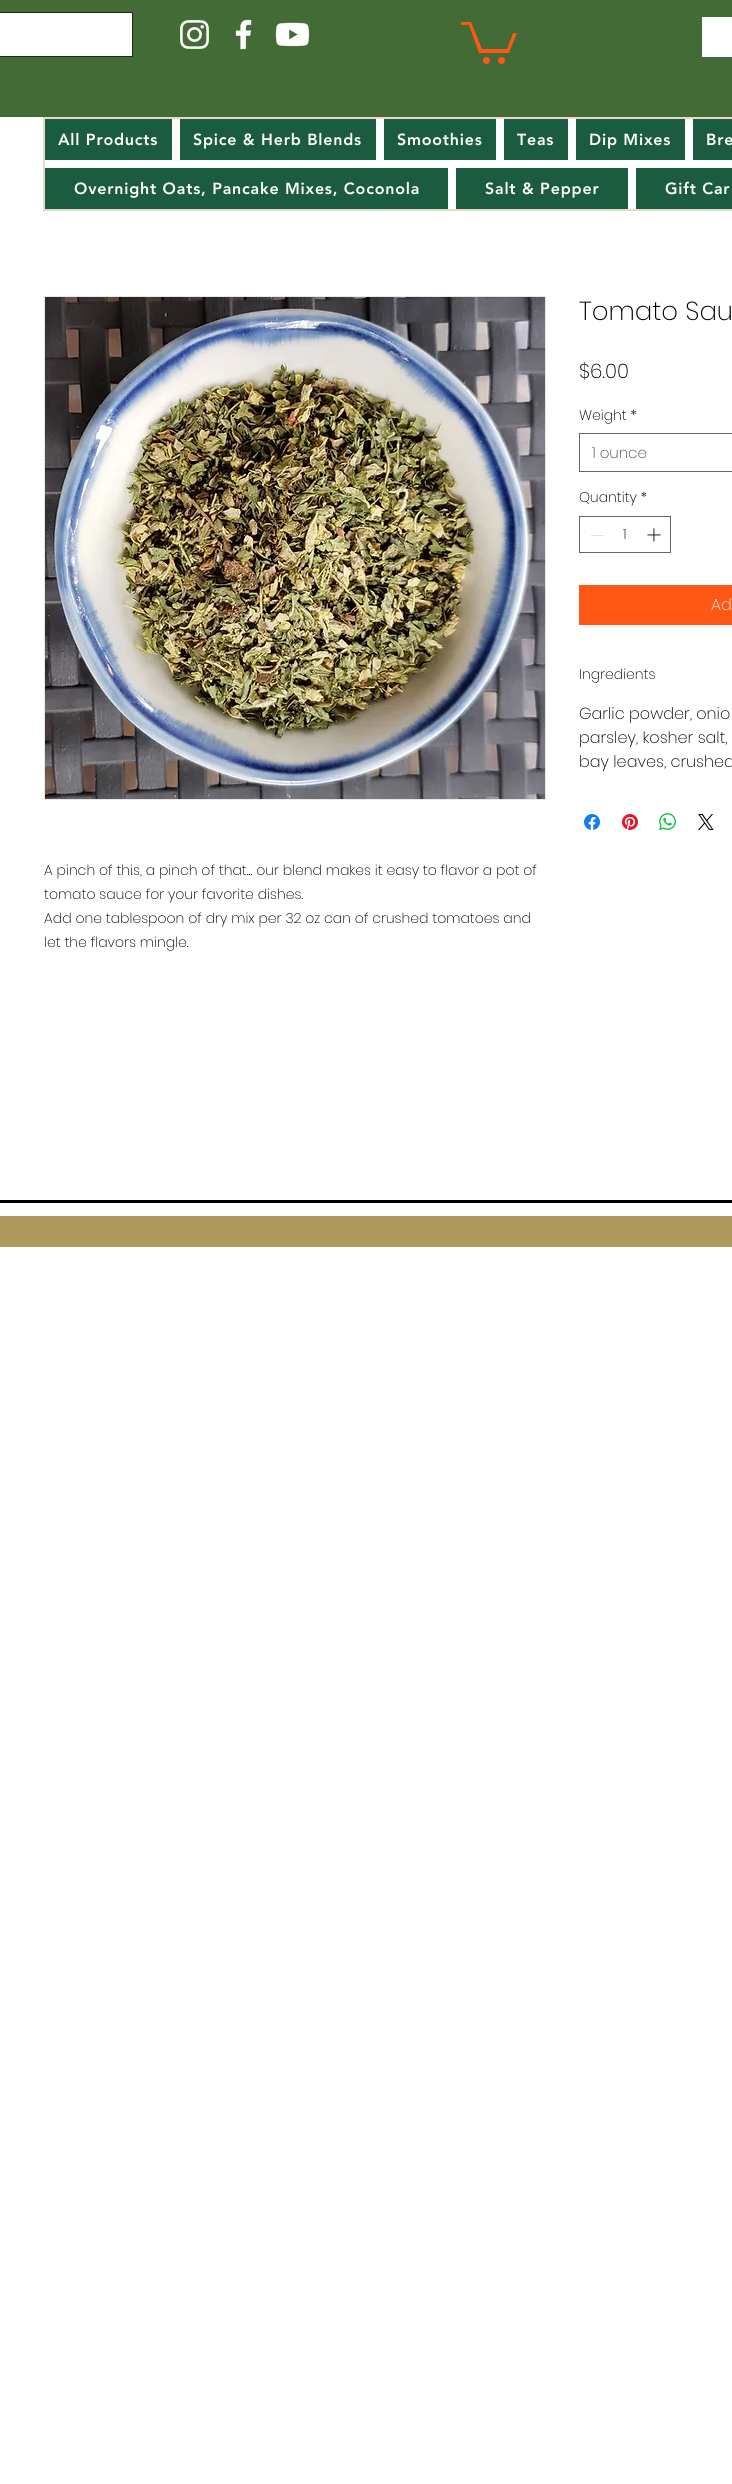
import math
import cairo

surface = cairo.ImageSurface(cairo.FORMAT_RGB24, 732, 2484)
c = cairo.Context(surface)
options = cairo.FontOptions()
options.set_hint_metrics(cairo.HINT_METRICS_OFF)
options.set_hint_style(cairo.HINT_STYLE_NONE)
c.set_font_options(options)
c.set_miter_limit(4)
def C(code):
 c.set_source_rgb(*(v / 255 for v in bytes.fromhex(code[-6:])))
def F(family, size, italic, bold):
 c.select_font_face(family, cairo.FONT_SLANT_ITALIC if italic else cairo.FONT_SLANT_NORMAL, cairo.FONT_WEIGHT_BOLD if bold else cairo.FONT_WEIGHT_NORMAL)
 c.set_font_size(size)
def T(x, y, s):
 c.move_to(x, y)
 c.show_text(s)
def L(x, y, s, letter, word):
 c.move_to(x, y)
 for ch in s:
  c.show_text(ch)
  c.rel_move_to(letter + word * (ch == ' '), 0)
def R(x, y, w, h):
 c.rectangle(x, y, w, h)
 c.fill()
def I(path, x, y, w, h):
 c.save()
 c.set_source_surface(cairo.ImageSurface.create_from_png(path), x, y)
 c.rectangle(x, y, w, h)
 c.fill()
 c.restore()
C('ffffff')
c.paint()
C('436b36')
R(0,0,732,117)
c.rectangle(-.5,12.5,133,44)
C('1b2b16')
c.set_line_width(1)
c.stroke()
C('ffffff')
R(0,13,132,43)
I('1.png',180,20,29,29)
I('2.png',235,19,17,31)
I('3.png',275,22,35,25)
C('ff5715')
c.new_path()
c.move_to(517,33)
c.line_to(509,53)
c.line_to(479,53)
c.line_to(469,25)
c.line_to(461,25)
c.line_to(461,22)
c.line_to(471,22)
c.line_to(482,49)
c.line_to(507,49)
c.line_to(513,33)
c.fill()
c.arc(501.5,60.5,3.5,0,2 * math.pi)
c.fill()
c.arc(486.5,60.5,3.5,0,2 * math.pi)
c.fill()
C('ffffff')
R(702,17,30,40)
c.rectangle(44,118,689,92)
C('e4dbc0')
c.set_line_width(2)
c.stroke()
C('1b5b3f')
R(45,119,127,41)
F('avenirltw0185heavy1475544 Black',16,0,0)
C('ffffff')
L(58,145,'All Products',.8,0)
C('1b5b3f')
R(180,119,196,41)
C('ffffff')
L(193,145,'Spice & Herb Blends',.8,0)
C('1b5b3f')
R(384,119,112,41)
C('ffffff')
L(397,145,'Smoothies',.8,0)
C('1b5b3f')
R(504,119,64,41)
C('ffffff')
L(517,145,'Teas',.8,0)
C('1b5b3f')
R(576,119,109,41)
C('ffffff')
L(589,145,'Dip Mixes',.8,0)
C('1b5b3f')
R(693,119,39,41)
C('ffffff')
L(706,145,'Bre',.8,0)
C('1b5b3f')
R(45,168,403,41)
C('ffffff')
L(74,194,'Overnight Oats, Pancake Mixes, Coconola',.8,0)
C('1b5b3f')
R(456,168,172,41)
C('ffffff')
L(485,194,'Salt & Pepper',.8,0)
C('1b5b3f')
R(636,168,96,41)
C('ffffff')
L(665,194,'Gift Car',.8,0)
F('Poppins ExtraLight',26,0,0)
C('000000')
T(579,320,'Tomato Sau')
F('Poppins ExtraLight',20,0,0)
T(579,378,'$6.00')
F('Poppins ExtraLight',14,0,0)
T(579,420,'Weight *')
c.rectangle(579.5,433.5,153,38)
C('666666')
c.set_line_width(1)
c.stroke()
F('Poppins ExtraLight',15,0,0)
C('444444')
T(592,458,'1 ounce')
F('Poppins ExtraLight',14,0,0)
C('000000')
T(579,502,'Quantity *')
c.rectangle(579.5,516.5,91,36)
C('666666')
c.stroke()
C('e3e3e3')
R(591,535,13,1)
C('000000')
T(623,539,'1')
I('4.png',647,528,14,14)
C('ff5715')
R(579,585,153,40)
F('Poppins ExtraLight',16,0,0)
C('ffffff')
T(711,610,'Ad')
F('Poppins ExtraLight',14,0,0)
C('000000')
T(579,679,'Ingredients')
F('Poppins ExtraLight',16,0,0)
T(579,719,'Garlic powder, onio')
T(579,743,'parsley, kosher salt,')
T(579,767,'bay leaves, crushed')
I('5.png',584,814,16,16)
I('6.png',622,814,16,16)
I('7.png',659,813,17,17)
I('8.png',698,814,16,16)
c.rectangle(44.5,296.5,501,503)
C('e8e6e6')
c.stroke()
I('9.png',45,297,500,502)
F('Poppins ExtraLight',14,0,0)
C('000000')
T(44,875,'A pinch of this, a pinch of that... our blend makes it easy to flavor a pot of')
T(44,899,'tomato sauce for your favorite dishes.')
T(44,923,'Add one tablespoon of dry mix per 32 oz can of crushed tomatoes and')
T(44,947,'let the flavors mingle.')
R(0,1200,732,3)
C('ad9a5c')
R(0,1216,732,31)
surface.write_to_png('o.png')
